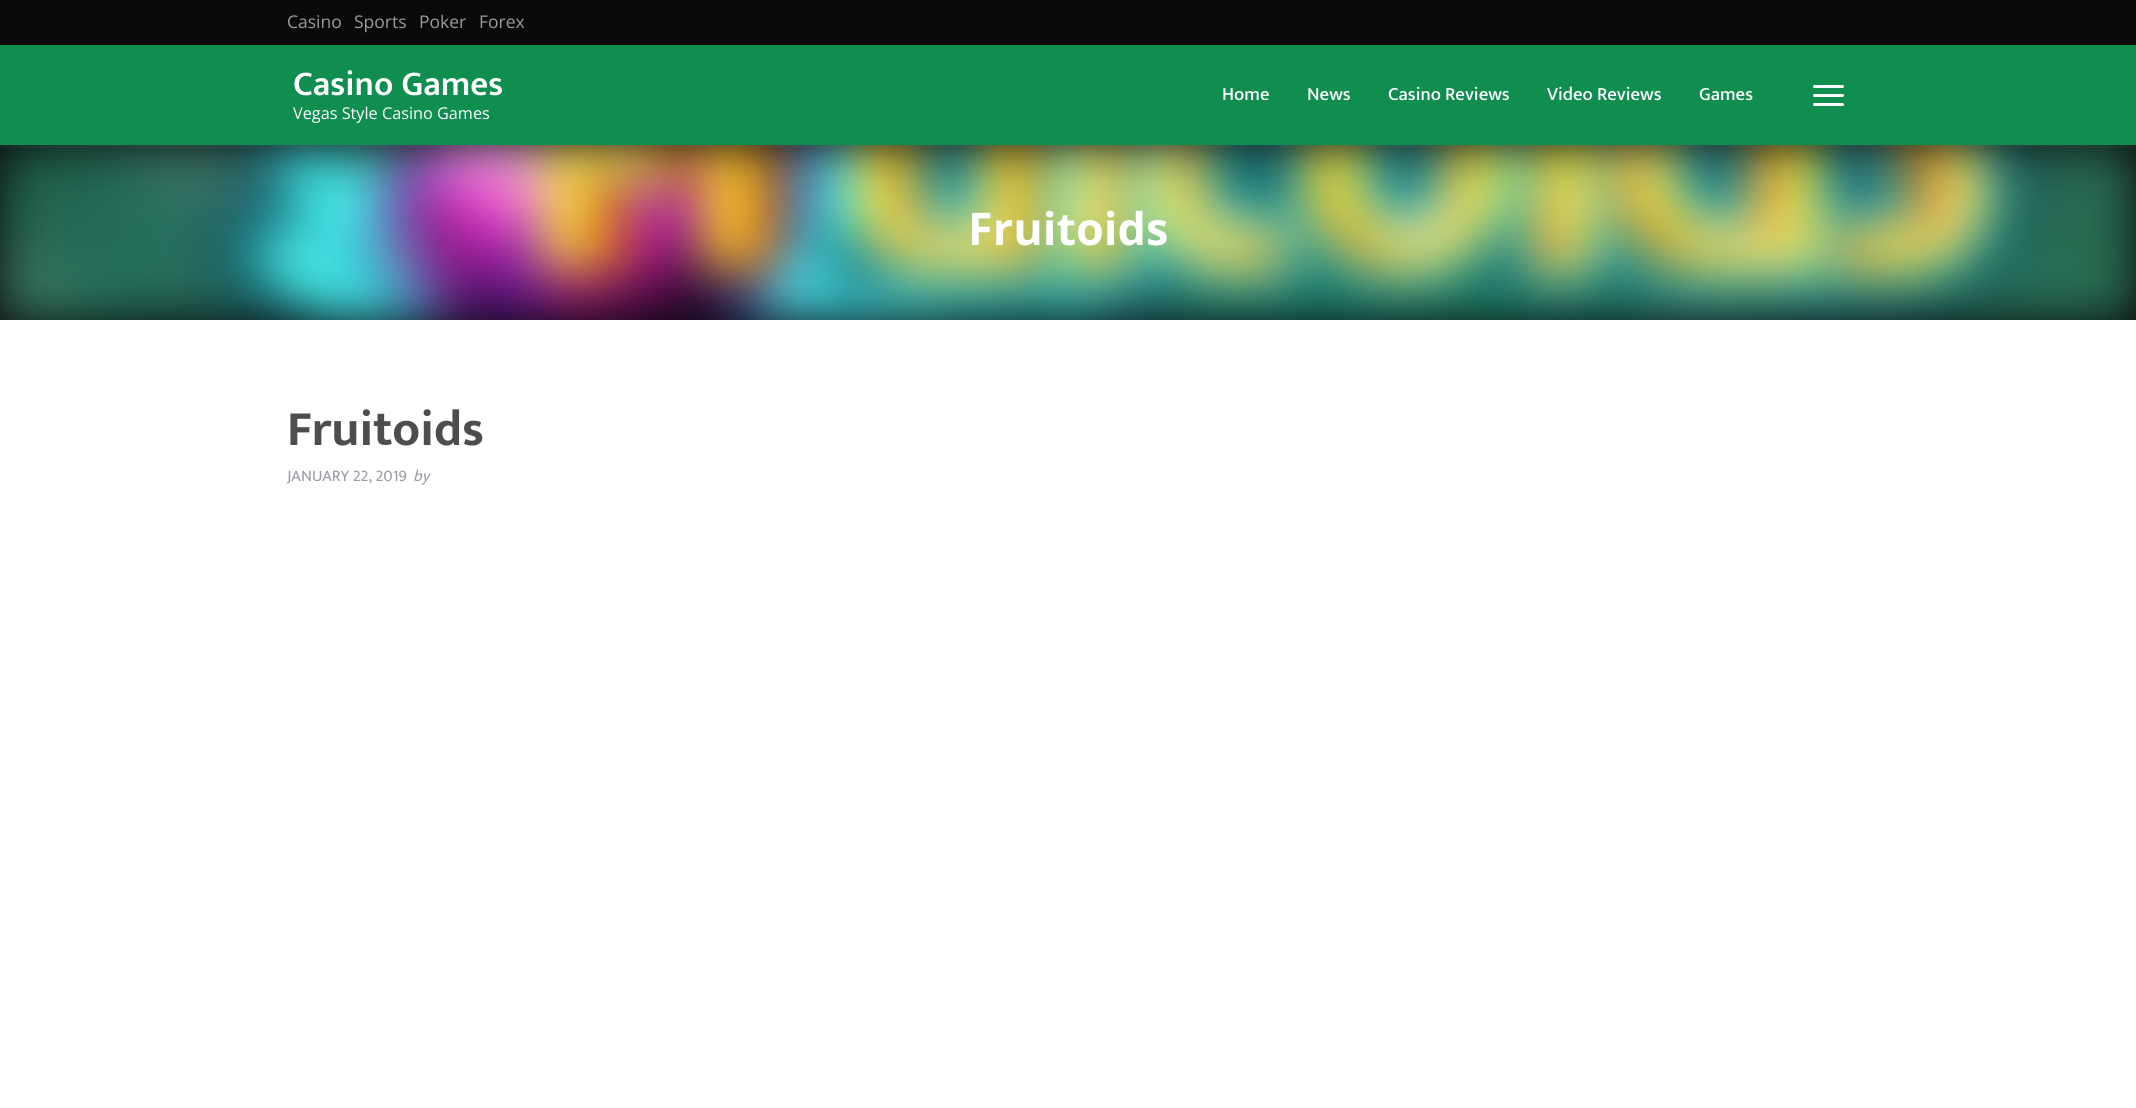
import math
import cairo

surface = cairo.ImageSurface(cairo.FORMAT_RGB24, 2136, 1108)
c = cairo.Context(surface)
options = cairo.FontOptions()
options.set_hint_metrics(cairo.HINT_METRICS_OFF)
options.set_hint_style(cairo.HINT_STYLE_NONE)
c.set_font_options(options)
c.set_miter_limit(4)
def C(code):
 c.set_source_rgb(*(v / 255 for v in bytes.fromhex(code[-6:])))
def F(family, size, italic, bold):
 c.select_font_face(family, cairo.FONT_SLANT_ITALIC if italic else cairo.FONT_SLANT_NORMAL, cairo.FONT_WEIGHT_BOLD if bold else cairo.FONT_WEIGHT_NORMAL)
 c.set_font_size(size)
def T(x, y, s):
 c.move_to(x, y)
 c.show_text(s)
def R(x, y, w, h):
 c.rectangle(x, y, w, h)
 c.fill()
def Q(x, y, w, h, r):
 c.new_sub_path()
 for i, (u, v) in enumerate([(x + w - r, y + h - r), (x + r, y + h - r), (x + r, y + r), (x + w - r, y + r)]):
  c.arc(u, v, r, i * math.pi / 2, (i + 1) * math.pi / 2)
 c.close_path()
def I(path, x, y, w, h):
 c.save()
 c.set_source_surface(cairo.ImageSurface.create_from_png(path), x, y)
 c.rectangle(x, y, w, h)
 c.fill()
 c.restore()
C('ffffff')
c.paint()
C('0a0a0a')
R(0,0,2136,45)
F('Open Sans',17.5,0,0)
C('9b9b9b')
T(287,28,'Casino')
T(354,28,'Sports')
T(419,28,'Poker')
T(479,28,'Forex')
C('0a0a0a')
R(0,145,2136,175)
I('1.png',0,145,2136,175)
c.set_source_rgba(0.439,0.439,0.439,0.09)
R(0,145,2136,3)
C('108e50')
R(0,45,2136,100)
F('Ek Mukta SemiBold',35,0,0)
C('ffffff')
T(293,95,'Casino Games')
F('Open Sans',16.25,0,0)
T(293,119,'Vegas Style Casino Games')
F('Ek Mukta Medium',18.75,0,0)
T(1222,100,'Home')
T(1307,100,'News')
T(1388,100,'Casino Reviews')
T(1547,100,'Video Reviews')
T(1699,100,'Games')
Q(1813,85,31,3,1.5)
c.fill()
Q(1813,94,31,3,1.5)
c.fill()
Q(1813,103,31,3,1.5)
c.fill()
F('Open Sans',45,0,1)
T(968,245,'Fruitoids')
F('Ek Mukta',50,0,1)
C('4d4d4f')
T(287,445,'Fruitoids')
F('Ek Mukta',16.25,0,0)
C('9b9ba7')
T(287,481,'JANUARY 22, 2019')
F('Ek Mukta',16.25,1,0)
T(413,481,'by')
surface.write_to_png('o.png')
